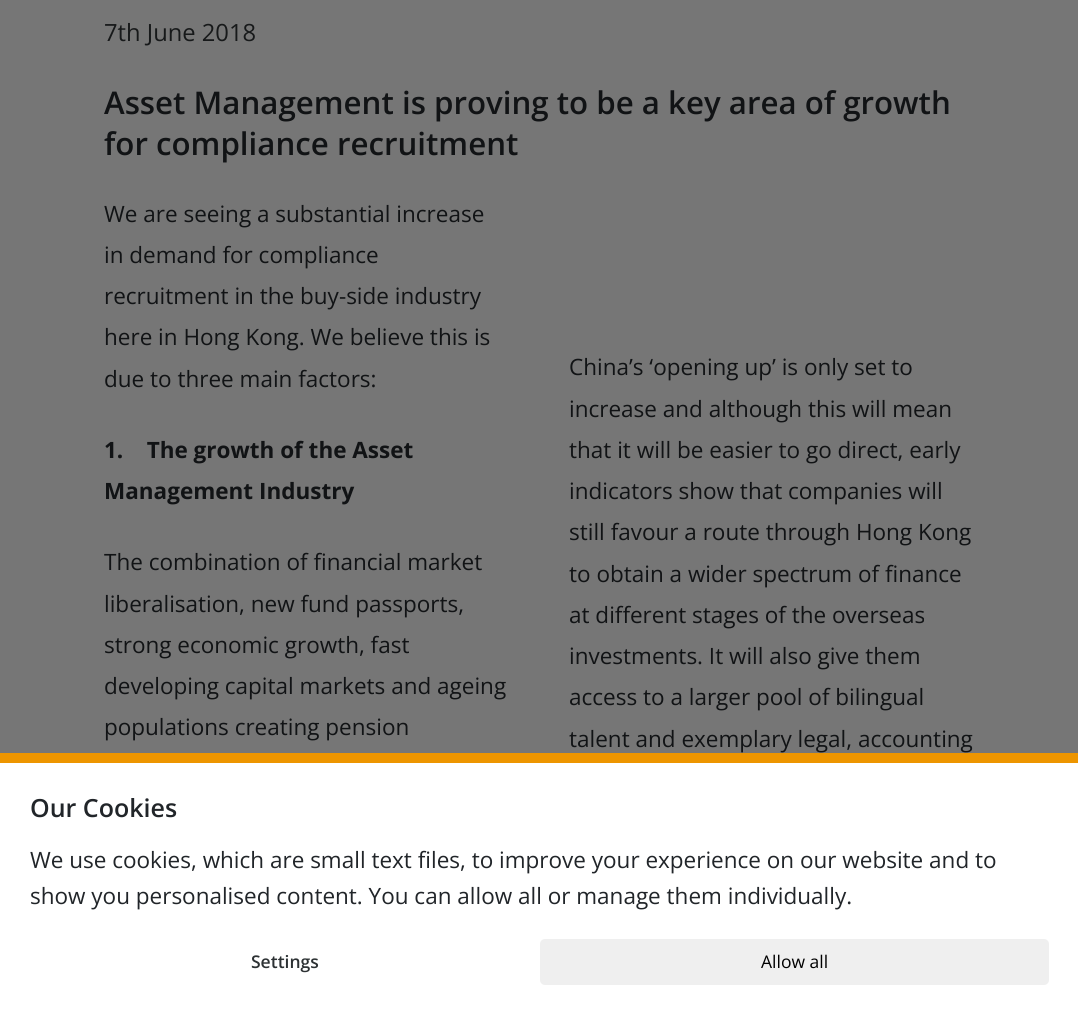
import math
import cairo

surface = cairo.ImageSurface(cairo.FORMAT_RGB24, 1078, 1015)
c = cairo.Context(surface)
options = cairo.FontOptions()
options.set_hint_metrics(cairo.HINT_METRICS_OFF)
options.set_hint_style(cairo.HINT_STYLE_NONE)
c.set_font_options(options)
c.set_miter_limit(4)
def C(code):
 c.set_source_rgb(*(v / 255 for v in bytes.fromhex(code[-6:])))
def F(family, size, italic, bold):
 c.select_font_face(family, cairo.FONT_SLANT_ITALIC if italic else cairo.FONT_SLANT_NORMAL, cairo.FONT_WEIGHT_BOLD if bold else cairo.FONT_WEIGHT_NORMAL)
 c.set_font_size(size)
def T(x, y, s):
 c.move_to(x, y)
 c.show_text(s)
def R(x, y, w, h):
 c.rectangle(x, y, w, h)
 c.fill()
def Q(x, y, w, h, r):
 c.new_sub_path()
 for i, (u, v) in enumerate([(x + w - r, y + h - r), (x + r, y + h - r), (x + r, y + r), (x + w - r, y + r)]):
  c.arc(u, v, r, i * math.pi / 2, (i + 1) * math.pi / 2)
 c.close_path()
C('767676')
c.paint()
F('Open Sans',23.75,0,0)
C('17191a')
T(104,41,'7th June 2018')
F('Open Sans SemiBold',31.25,0,0)
C('111315')
T(104,114,'Asset Management is proving to be a key area of growth')
T(104,155,'for compliance recruitment')
F('Open Sans',22.5,0,0)
T(104,222,'We are seeing a substantial increase')
T(104,263,'in demand for compliance')
T(104,304,'recruitment in the buy-side industry')
T(104,345,'here in Hong Kong. We believe this is')
T(104,387,'due to three main factors:')
F('Open Sans',22.5,0,1)
T(104,458,'1.    The growth of the Asset')
T(104,499,'Management Industry')
F('Open Sans',22.5,0,0)
T(569,375,'China’s ‘opening up’ is only set to')
T(569,417,'increase and although this will mean')
T(569,458,'that it will be easier to go direct, early')
T(569,499,'indicators show that companies will')
T(569,540,'still favour a route through Hong Kong')
T(569,582,'to obtain a wider spectrum of finance')
T(569,623,'at different stages of the overseas')
T(569,664,'investments. It will also give them')
T(569,705,'access to a larger pool of bilingual')
T(569,747,'talent and exemplary legal, accounting')
T(104,570,'The combination of financial market')
T(104,612,'liberalisation, new fund passports,')
T(104,653,'strong economic growth, fast')
T(104,694,'developing capital markets and ageing')
T(104,735,'populations creating pension')
C('ffffff')
R(0,763,1078,252)
C('ed9500')
R(0,753,1078,10)
F('Open Sans SemiBold',25,0,0)
C('212529')
T(30,817,'Our Cookies')
F('Open Sans',22.5,0,0)
T(30,868,'We use cookies, which are small text files, to improve your experience on our website and to')
T(30,904,'show you personalised content. You can allow all or manage them individually.')
F('Open Sans SemiBold',17.5,0,0)
C('2d3234')
T(251,968,'Settings')
C('efefef')
Q(540,939,509,46,5)
c.fill()
F('Open Sans',17.5,0,0)
C('000000')
T(761,968,'Allow all')
surface.write_to_png('o.png')
